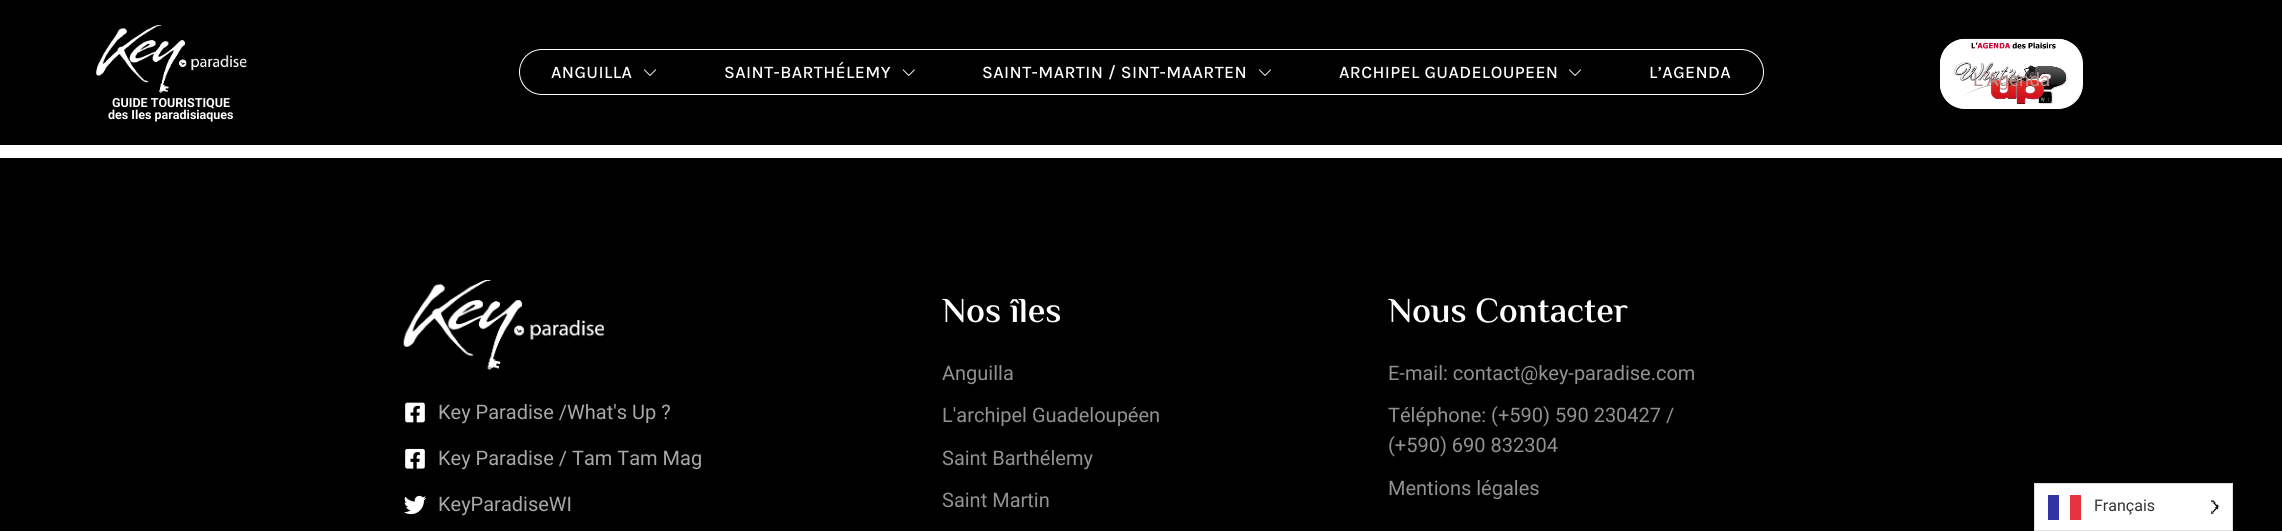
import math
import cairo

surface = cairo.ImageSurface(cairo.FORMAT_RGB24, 2282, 531)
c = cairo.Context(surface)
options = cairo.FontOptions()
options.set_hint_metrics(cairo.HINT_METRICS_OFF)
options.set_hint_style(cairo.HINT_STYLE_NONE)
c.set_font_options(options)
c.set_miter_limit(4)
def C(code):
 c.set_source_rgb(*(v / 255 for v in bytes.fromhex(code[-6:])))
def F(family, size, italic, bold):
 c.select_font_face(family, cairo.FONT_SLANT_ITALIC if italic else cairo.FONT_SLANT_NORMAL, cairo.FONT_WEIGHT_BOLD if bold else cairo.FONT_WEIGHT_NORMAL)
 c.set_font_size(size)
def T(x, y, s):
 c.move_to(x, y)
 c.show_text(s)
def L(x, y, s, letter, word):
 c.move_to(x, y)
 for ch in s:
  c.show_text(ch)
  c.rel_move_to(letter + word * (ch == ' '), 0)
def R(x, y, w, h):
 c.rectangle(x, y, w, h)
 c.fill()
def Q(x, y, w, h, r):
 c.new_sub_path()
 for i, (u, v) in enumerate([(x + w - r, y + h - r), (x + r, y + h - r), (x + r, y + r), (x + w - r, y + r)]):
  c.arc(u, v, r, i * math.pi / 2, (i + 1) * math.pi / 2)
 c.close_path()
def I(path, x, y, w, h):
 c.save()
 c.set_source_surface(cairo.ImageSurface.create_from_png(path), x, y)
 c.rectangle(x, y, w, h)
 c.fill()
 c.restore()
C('ffffff')
c.paint()
C('000000')
R(0,0,2282,145)
Q(519.5,49.5,1244,45,22.5)
C('ffffff')
c.set_line_width(1)
c.stroke()
F('Karla Medium',17.5,0,0)
L(551,78,'ANGUILLA',.4,0)
I('1.png',644,69,12,7)
L(724,78,'SAINT-BARTHÉLEMY',.4,0)
I('2.png',902,69,13,7)
L(982,78,'SAINT-MARTIN / SINT-MAARTEN',.4,0)
I('1.png',1259,69,12,7)
L(1339,78,'ARCHIPEL GUADELOUPEEN',.4,0)
I('1.png',1569,69,12,7)
L(1649,78,'L’AGENDA',.4,0)
I('3.png',1940,38,143,71)
Q(1940.5,39.5,142,69,24.5)
c.stroke()
F('Roboto',18.75,0,0)
C('b78f8e')
T(1973,86,'L\'Agenda')
I('4.png',96,25,151,68)
F('Roboto',12.5,0,1)
C('ffffff')
T(112,107,'GUIDE TOURISTIQUE')
T(108,119,'des Iles paradisiaques')
C('000000')
R(0,158,2282,373)
I('5.png',403,280,201,90)
I('6.png',405,402,20,21)
F('Roboto',20,0,0)
C('aaa7a7')
T(438,419,'Key Paradise /What\'s Up ?')
I('7.png',405,448,20,21)
T(438,465,'Key Paradise / Tam Tam Mag')
I('8.png',404,495,22,20)
T(438,511,'KeyParadiseWI')
F('El Messiri SemiBold',35,0,0)
C('ffffff')
T(942,322,'Nos îles')
F('Roboto',20,0,0)
C('919191')
T(942,380,'Anguilla')
T(942,422,'L\'archipel Guadeloupéen')
T(942,465,'Saint Barthélemy')
T(942,507,'Saint Martin')
F('El Messiri SemiBold',35,0,0)
C('ffffff')
T(1388,322,'Nous Contacter')
F('Roboto',20,0,0)
C('919191')
T(1388,380,'E-mail: contact@key-paradise.com')
T(1388,422,'Téléphone: (+590) 590 230427 /')
T(1388,452,'(+590) 690 832304')
T(1388,495,'Mentions légales')
C('ffffff')
c.rectangle(2034.5,483.5,198,47)
c.fill_preserve()
C('e0e0e0')
c.stroke()
C('3333a7')
R(2048,495,11,25)
C('e7333f')
R(2070,495,11,25)
F('Roboto',16,0,0)
C('333333')
T(2094,511,'Français')
I('9.png',2211,500,8,14)
surface.write_to_png('o.png')
